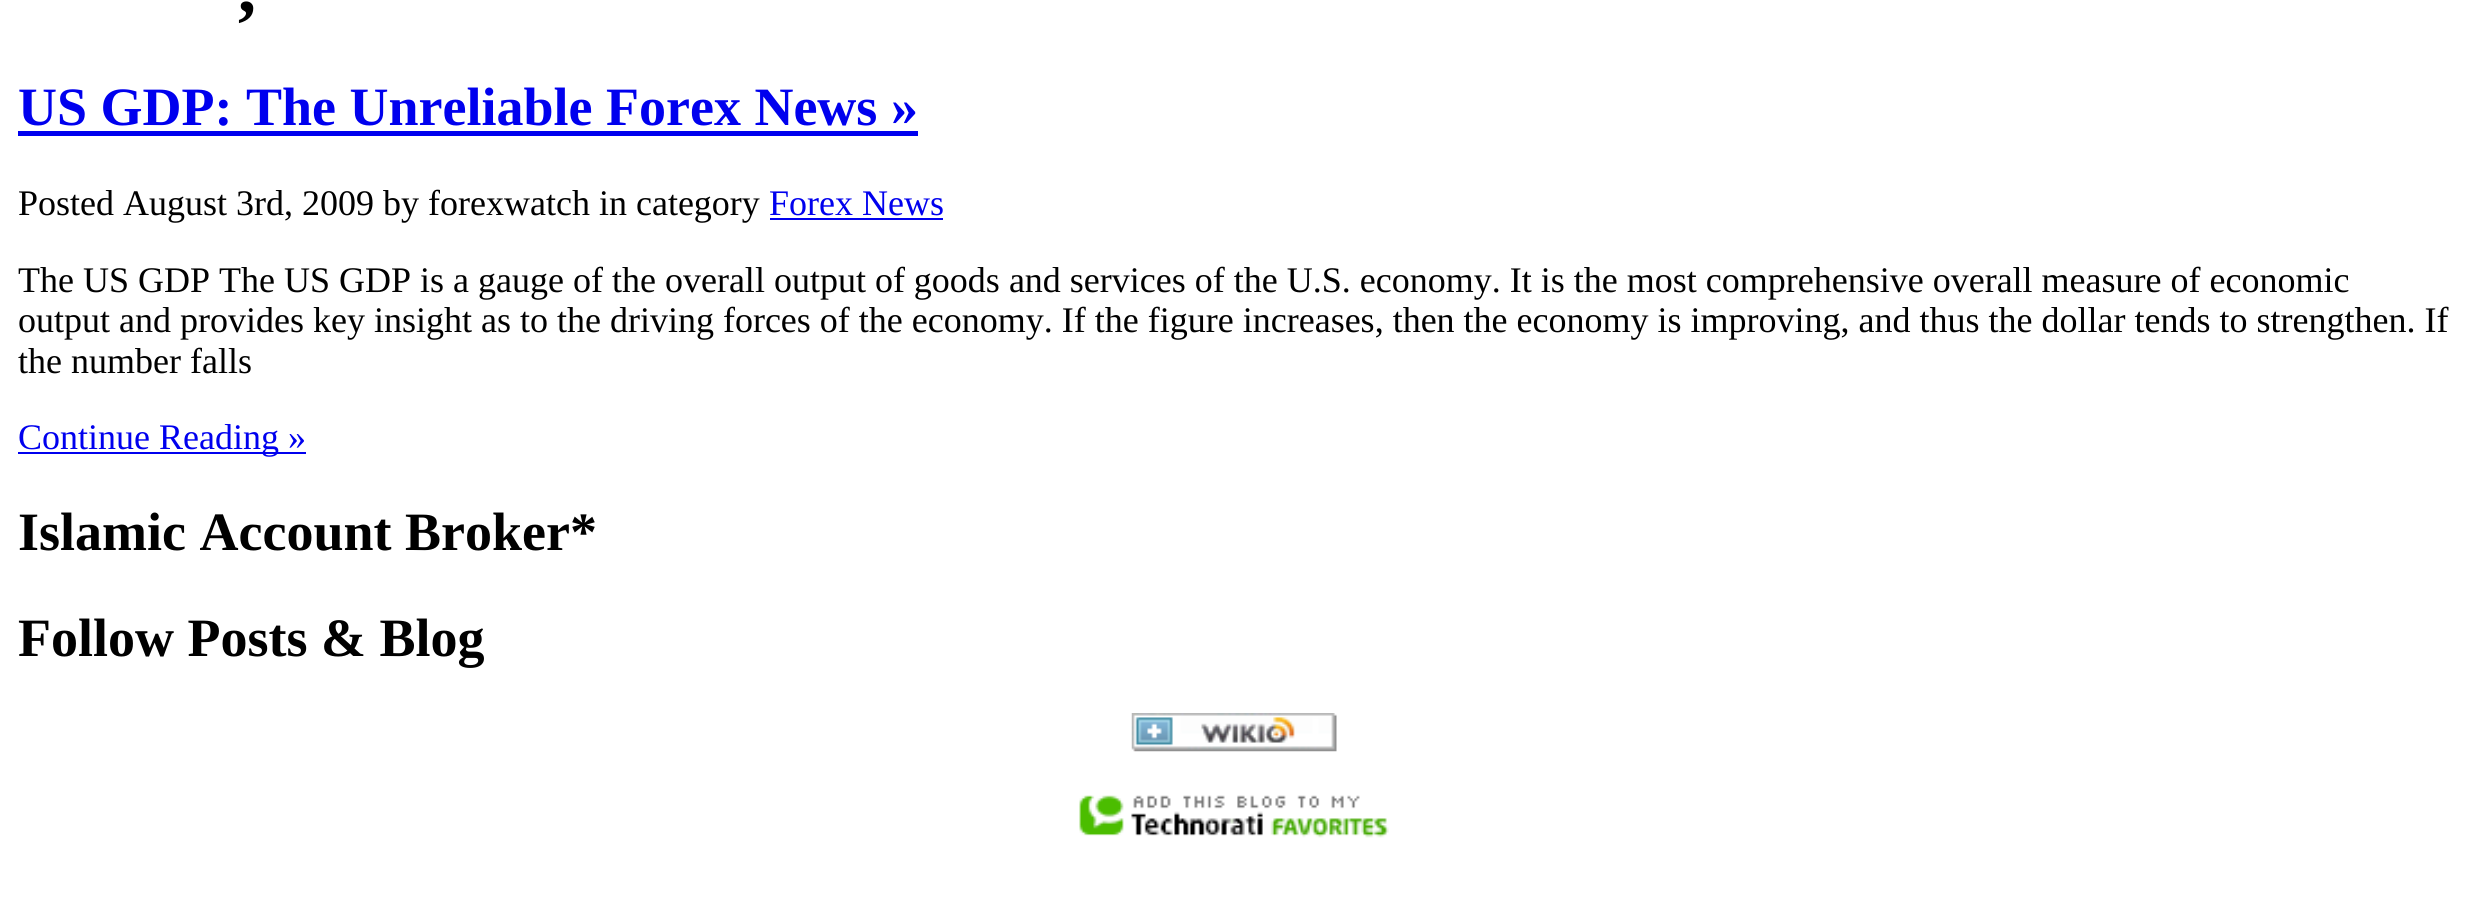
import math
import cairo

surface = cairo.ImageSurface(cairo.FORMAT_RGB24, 2467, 897)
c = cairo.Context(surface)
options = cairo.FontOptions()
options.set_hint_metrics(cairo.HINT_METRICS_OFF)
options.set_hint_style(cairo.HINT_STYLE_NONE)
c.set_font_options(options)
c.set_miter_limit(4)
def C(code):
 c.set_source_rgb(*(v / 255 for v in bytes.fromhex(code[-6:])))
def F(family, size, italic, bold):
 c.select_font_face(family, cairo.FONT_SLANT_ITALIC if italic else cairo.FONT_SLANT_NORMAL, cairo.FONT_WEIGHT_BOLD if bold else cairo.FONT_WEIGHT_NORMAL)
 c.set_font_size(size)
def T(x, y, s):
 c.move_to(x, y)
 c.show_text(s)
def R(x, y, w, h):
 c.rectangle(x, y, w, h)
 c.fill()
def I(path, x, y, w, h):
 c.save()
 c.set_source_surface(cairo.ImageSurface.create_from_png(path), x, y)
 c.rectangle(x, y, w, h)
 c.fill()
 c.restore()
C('ffffff')
c.paint()
F('Liberation Serif',72,0,1)
C('000000')
T(238,12,',')
F('Liberation Serif',54,0,1)
C('0000ee')
T(18,125,'US GDP: The Unreliable Forex News »')
R(18,131,900,5)
F('Liberation Serif',36,0,0)
C('000000')
T(18,215,'Posted August 3rd, 2009 by forexwatch in category')
C('0000ee')
T(769,215,'Forex News')
R(770,218,173,2)
C('000000')
T(18,292,'The US GDP The US GDP is a gauge of the overall output of goods and services of the U.S. economy. It is the most comprehensive overall measure of economic')
T(18,332,'output and provides key insight as to the driving forces of the economy. If the figure increases, then the economy is improving, and thus the dollar tends to strengthen. If')
T(18,373,'the number falls')
C('0000ee')
R(18,452,288,2)
T(18,449,'Continue Reading »')
F('Liberation Serif',54,0,1)
C('000000')
T(18,550,'Islamic Account Broker*')
T(18,656,'Follow Posts & Blog')
I('1.png',1131,713,206,39)
I('2.png',1079,795,310,43)
surface.write_to_png('o.png')
